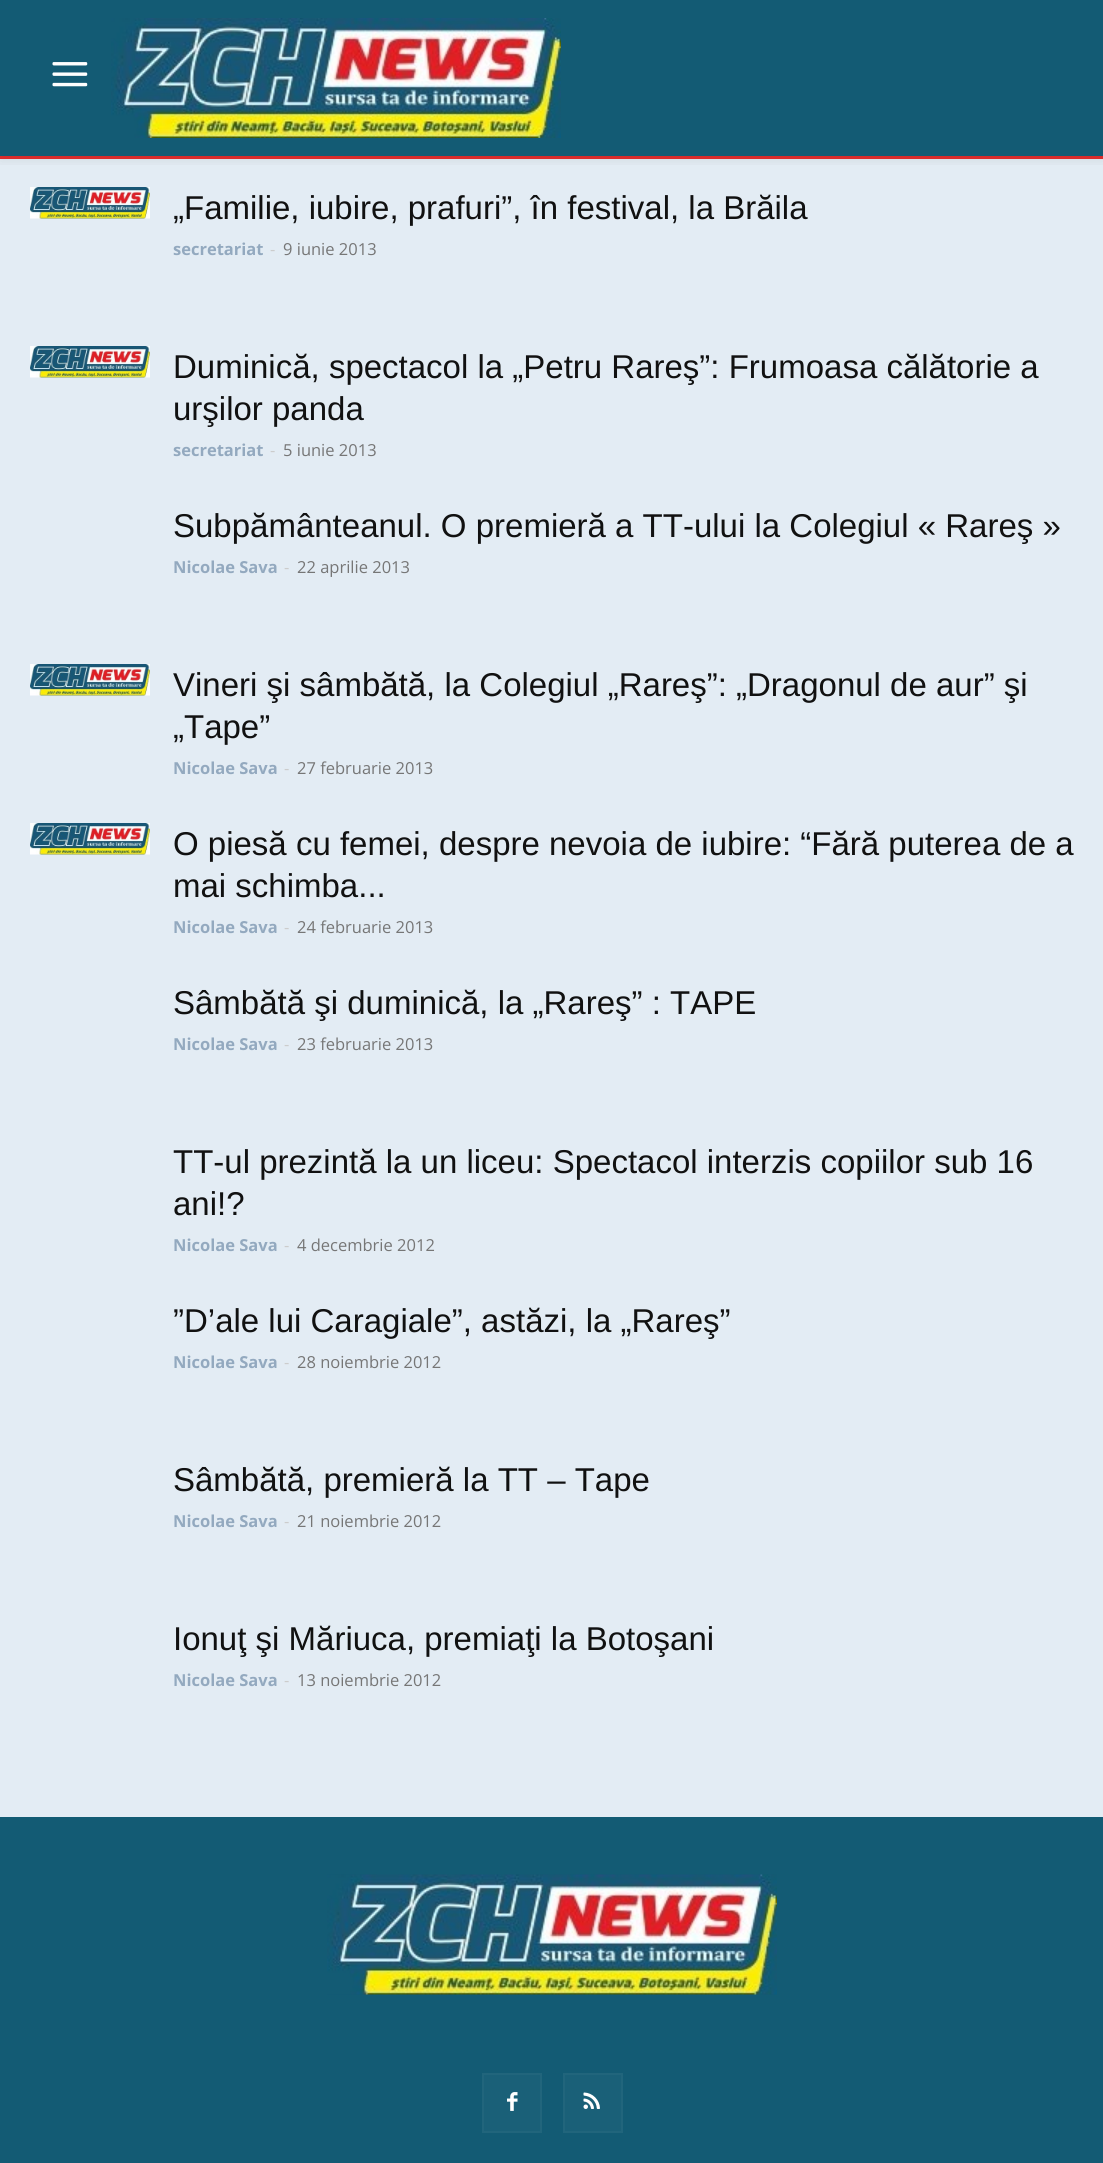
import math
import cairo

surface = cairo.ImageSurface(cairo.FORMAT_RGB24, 1103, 2163)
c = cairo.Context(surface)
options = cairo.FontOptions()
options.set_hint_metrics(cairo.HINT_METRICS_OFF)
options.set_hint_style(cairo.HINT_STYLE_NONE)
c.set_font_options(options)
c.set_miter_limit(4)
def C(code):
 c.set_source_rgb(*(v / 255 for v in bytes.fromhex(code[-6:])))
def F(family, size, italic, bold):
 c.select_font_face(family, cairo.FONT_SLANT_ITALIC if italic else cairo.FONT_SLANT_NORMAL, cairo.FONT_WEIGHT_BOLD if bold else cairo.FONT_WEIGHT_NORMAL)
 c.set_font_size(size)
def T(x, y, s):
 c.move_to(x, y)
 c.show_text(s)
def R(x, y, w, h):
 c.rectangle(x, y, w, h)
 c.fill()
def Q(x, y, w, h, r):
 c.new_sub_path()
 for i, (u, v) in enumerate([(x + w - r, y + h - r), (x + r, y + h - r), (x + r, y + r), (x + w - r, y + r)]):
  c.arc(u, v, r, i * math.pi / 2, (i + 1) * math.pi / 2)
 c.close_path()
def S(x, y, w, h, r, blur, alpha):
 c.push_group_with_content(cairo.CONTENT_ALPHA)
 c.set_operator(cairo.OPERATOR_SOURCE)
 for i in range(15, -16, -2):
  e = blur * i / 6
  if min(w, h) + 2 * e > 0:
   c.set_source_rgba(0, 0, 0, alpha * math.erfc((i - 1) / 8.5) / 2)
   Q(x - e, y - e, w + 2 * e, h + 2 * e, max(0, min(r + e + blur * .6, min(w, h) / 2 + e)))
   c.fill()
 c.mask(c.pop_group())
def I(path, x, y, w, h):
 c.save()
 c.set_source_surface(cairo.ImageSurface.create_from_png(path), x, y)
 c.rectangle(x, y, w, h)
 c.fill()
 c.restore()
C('e3ecf4')
c.paint()
C('e52e2e')
R(0,156,1103,3)
C('135b74')
R(0,0,1103,156)
I('1.png',52,62,36,25)
I('2.png',111,18,450,120)
c.save()
c.rectangle(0,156,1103,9)
c.clip()
C('000000')
S(0,3,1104,156,0,7.5,.09)
c.restore()
I('3.png',30,187,120,32)
F('Liberation Sans',33,0,0)
C('111111')
T(173,219,'„Familie, iubire, prafuri”, în festival, la Brăila')
F('Open Sans',16.5,0,1)
C('93a9bf')
T(173,255,'secretariat')
F('Open Sans',16.5,0,0)
C('cccccc')
T(270,255,'-')
C('767676')
T(283,255,'9 iunie 2013')
I('3.png',30,346,120,32)
F('Liberation Sans',33,0,0)
C('111111')
T(173,378,'Duminică, spectacol la „Petru Rareş”: Frumoasa călătorie a')
T(173,420,'urşilor panda')
F('Open Sans',16.5,0,1)
C('93a9bf')
T(173,456,'secretariat')
F('Open Sans',16.5,0,0)
C('cccccc')
T(270,456,'-')
C('767676')
T(283,456,'5 iunie 2013')
F('Liberation Sans',33,0,0)
C('111111')
T(173,537,'Subpământeanul. O premieră a TT-ului la Colegiul « Rareş »')
F('Open Sans',16.5,0,1)
C('93a9bf')
T(173,573,'Nicolae Sava')
F('Open Sans',16.5,0,0)
C('cccccc')
T(284,573,'-')
C('767676')
T(297,573,'22 aprilie 2013')
I('3.png',30,664,120,32)
F('Liberation Sans',33,0,0)
C('111111')
T(173,696,'Vineri şi sâmbătă, la Colegiul „Rareş”: „Dragonul de aur” şi')
T(173,738,'„Tape”')
F('Open Sans',16.5,0,1)
C('93a9bf')
T(173,774,'Nicolae Sava')
F('Open Sans',16.5,0,0)
C('cccccc')
T(284,774,'-')
C('767676')
T(297,774,'27 februarie 2013')
I('3.png',30,823,120,32)
F('Liberation Sans',33,0,0)
C('111111')
T(173,855,'O piesă cu femei, despre nevoia de iubire: “Fără puterea de a')
T(173,897,'mai schimba...')
F('Open Sans',16.5,0,1)
C('93a9bf')
T(173,933,'Nicolae Sava')
F('Open Sans',16.5,0,0)
C('cccccc')
T(284,933,'-')
C('767676')
T(297,933,'24 februarie 2013')
F('Liberation Sans',33,0,0)
C('111111')
T(173,1014,'Sâmbătă şi duminică, la „Rareş” : TAPE')
F('Open Sans',16.5,0,1)
C('93a9bf')
T(173,1050,'Nicolae Sava')
F('Open Sans',16.5,0,0)
C('cccccc')
T(284,1050,'-')
C('767676')
T(297,1050,'23 februarie 2013')
F('Liberation Sans',33,0,0)
C('111111')
T(173,1173,'TT-ul prezintă la un liceu: Spectacol interzis copiilor sub 16')
T(173,1215,'ani!?')
F('Open Sans',16.5,0,1)
C('93a9bf')
T(173,1251,'Nicolae Sava')
F('Open Sans',16.5,0,0)
C('cccccc')
T(284,1251,'-')
C('767676')
T(297,1251,'4 decembrie 2012')
F('Liberation Sans',33,0,0)
C('111111')
T(173,1332,'”D’ale lui Caragiale”, astăzi, la „Rareş”')
F('Open Sans',16.5,0,1)
C('93a9bf')
T(173,1368,'Nicolae Sava')
F('Open Sans',16.5,0,0)
C('cccccc')
T(284,1368,'-')
C('767676')
T(297,1368,'28 noiembrie 2012')
F('Liberation Sans',33,0,0)
C('111111')
T(173,1491,'Sâmbătă, premieră la TT – Tape')
F('Open Sans',16.5,0,1)
C('93a9bf')
T(173,1527,'Nicolae Sava')
F('Open Sans',16.5,0,0)
C('cccccc')
T(284,1527,'-')
C('767676')
T(297,1527,'21 noiembrie 2012')
F('Liberation Sans',33,0,0)
C('111111')
T(173,1650,'Ionuţ şi Măriuca, premiaţi la Botoşani')
F('Open Sans',16.5,0,1)
C('93a9bf')
T(173,1686,'Nicolae Sava')
F('Open Sans',16.5,0,0)
C('cccccc')
T(284,1686,'-')
C('767676')
T(297,1686,'13 noiembrie 2012')
C('135b74')
R(0,1817,1103,346)
I('4.png',327,1874,450,121)
C('1a6078')
R(484,2075,56,56)
I('5.png',507,2092,11,19)
c.rectangle(483,2074,58,58)
C('21657c')
c.stroke()
C('1a6078')
R(565,2075,56,56)
I('6.png',583,2092,17,17)
c.rectangle(564,2074,58,58)
C('21657c')
c.stroke()
surface.write_to_png('o.png')
